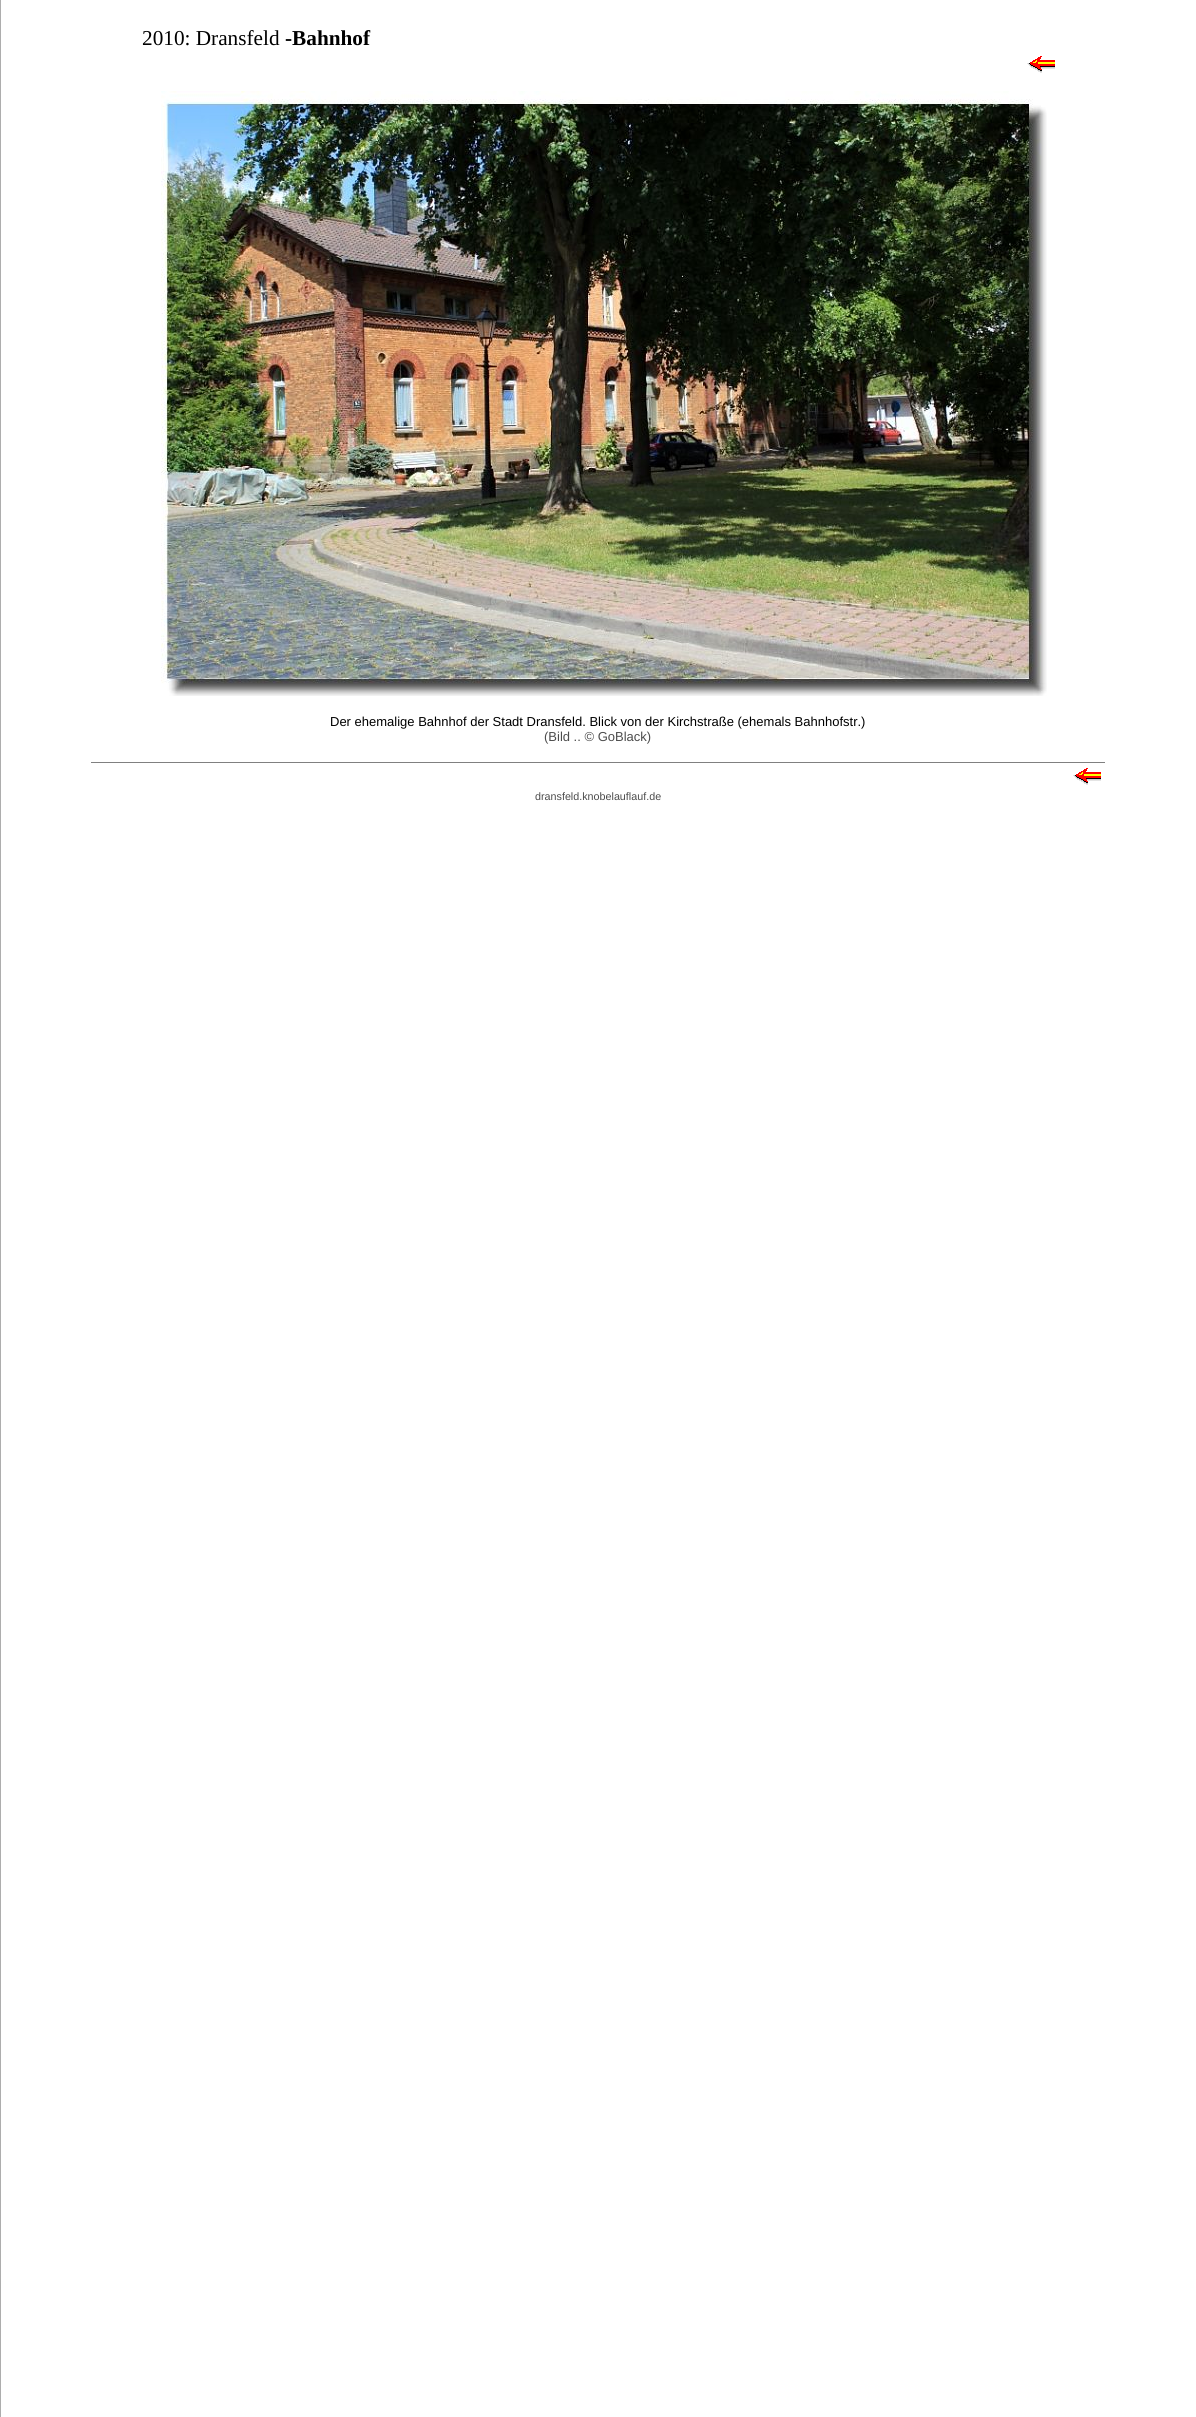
import math
import cairo

surface = cairo.ImageSurface(cairo.FORMAT_RGB24, 1196, 2417)
c = cairo.Context(surface)
options = cairo.FontOptions()
options.set_hint_metrics(cairo.HINT_METRICS_OFF)
options.set_hint_style(cairo.HINT_STYLE_NONE)
c.set_font_options(options)
c.set_miter_limit(4)
def C(code):
 c.set_source_rgb(*(v / 255 for v in bytes.fromhex(code[-6:])))
def F(family, size, italic, bold):
 c.select_font_face(family, cairo.FONT_SLANT_ITALIC if italic else cairo.FONT_SLANT_NORMAL, cairo.FONT_WEIGHT_BOLD if bold else cairo.FONT_WEIGHT_NORMAL)
 c.set_font_size(size)
def T(x, y, s):
 c.move_to(x, y)
 c.show_text(s)
def R(x, y, w, h):
 c.rectangle(x, y, w, h)
 c.fill()
def I(path, x, y, w, h):
 c.save()
 c.set_source_surface(cairo.ImageSurface.create_from_png(path), x, y)
 c.rectangle(x, y, w, h)
 c.fill()
 c.restore()
C('ffffff')
c.paint()
C('adadad')
R(0,0,1,2417)
F('Liberation Serif',21.25,0,0)
C('000000')
T(142,45,'2010: Dransfeld')
F('Liberation Serif',21.25,0,1)
T(285,45,'-Bahnhof')
I('1.png',1027,56,28,17)
I('2.png',161,91,886,605)
F('Liberation Sans',13,0,0)
T(330,726,'Der ehemalige Bahnhof der Stadt Dransfeld. Blick von der Kirchstraße (ehemals Bahnhofstr.)')
C('4c4c4c')
T(544,741,'(Bild .. © GoBlack)')
C('808080')
R(91,762,1014,1)
I('1.png',1073,768,28,17)
F('Liberation Sans',10.75,0,0)
C('4c4c4c')
T(535,800,'dransfeld.knobelauflauf.de')
surface.write_to_png('o.png')
